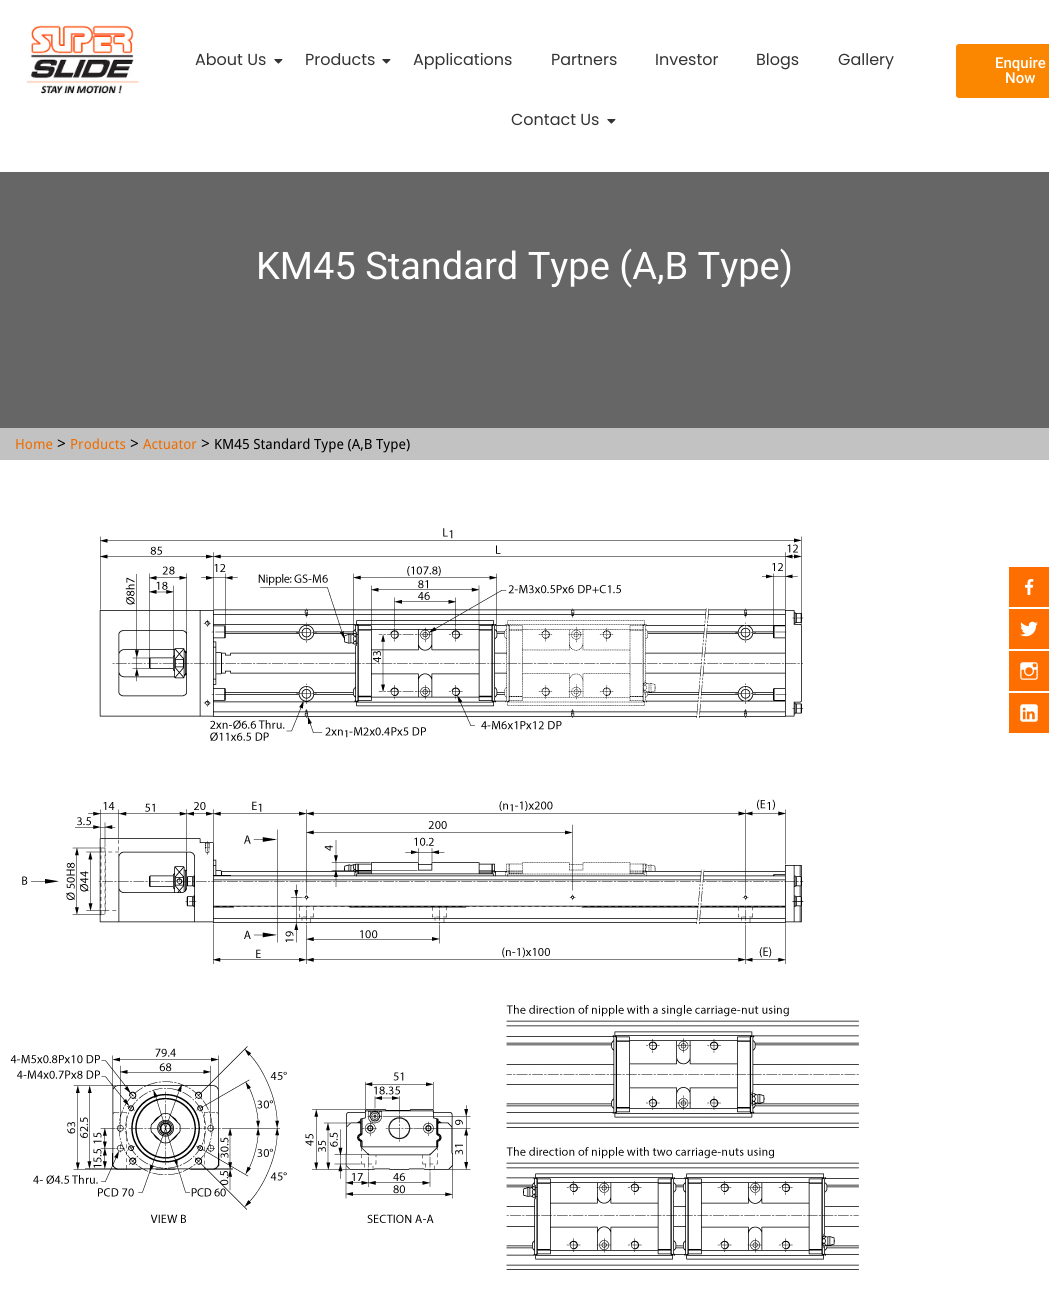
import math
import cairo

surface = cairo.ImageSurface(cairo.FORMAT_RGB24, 1049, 1301)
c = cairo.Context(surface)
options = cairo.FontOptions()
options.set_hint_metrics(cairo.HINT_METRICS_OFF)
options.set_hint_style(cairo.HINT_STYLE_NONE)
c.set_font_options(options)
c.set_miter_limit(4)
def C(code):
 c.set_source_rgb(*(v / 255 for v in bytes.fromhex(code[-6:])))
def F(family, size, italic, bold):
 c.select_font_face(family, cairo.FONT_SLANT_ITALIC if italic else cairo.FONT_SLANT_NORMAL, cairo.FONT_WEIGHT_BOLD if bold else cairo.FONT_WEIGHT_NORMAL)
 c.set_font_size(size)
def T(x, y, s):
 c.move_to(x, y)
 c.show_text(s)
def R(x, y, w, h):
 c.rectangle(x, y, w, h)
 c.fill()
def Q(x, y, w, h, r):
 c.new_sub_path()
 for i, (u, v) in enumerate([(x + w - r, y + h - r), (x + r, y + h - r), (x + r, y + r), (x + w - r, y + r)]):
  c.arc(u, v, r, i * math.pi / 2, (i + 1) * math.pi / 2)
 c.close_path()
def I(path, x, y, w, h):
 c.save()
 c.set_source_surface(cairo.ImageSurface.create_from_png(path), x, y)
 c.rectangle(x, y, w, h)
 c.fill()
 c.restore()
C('ffffff')
c.paint()
I('1.png',26,25,113,69)
F('Poppins',16,0,0)
C('333333')
T(195,65,'About Us')
I('2.png',274,59,9,5)
T(305,65,'Products')
I('2.png',382,59,9,5)
T(413,65,'Applications')
T(551,65,'Partners')
T(655,65,'Investor')
T(756,65,'Blogs')
T(838,65,'Gallery')
T(511,125,'Contact Us')
I('2.png',607,119,9,5)
C('fb8600')
Q(956,44,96,54,3)
c.fill()
F('Roboto Medium',15,0,0)
C('ffffff')
T(995,68,'Enquire')
T(1005,83,'Now')
C('666666')
R(0,172,1049,256)
F('Roboto',38,0,0)
C('ffffff')
T(256,279,'KM45 Standard Type (A,B Type)')
C('c2c2c2')
R(0,428,1049,32)
F('Droid Sans',14,0,0)
C('ed6d00')
T(15,449,'Home')
F('Droid Sans',16,0,0)
C('000000')
T(57,449,'>')
F('Droid Sans',14,0,0)
C('ed6d00')
T(70,449,'Products')
F('Droid Sans',16,0,0)
C('000000')
T(130,449,'>')
F('Droid Sans',14,0,0)
C('ed6d00')
T(143,449,'Actuator')
F('Droid Sans',16,0,0)
C('000000')
T(201,449,'>')
F('Droid Sans',14,0,0)
T(214,449,'KM45 Standard Type (A,B Type)')
I('3.png',10,528,849,742)
C('ff6e01')
R(1009,567,40,40)
I('4.png',1025,579,9,16)
R(1009,609,40,40)
I('5.png',1020,621,18,16)
R(1009,651,40,40)
I('6.png',1020,662,18,18)
R(1009,693,40,40)
I('7.png',1020,704,18,18)
surface.write_to_png('o.png')
